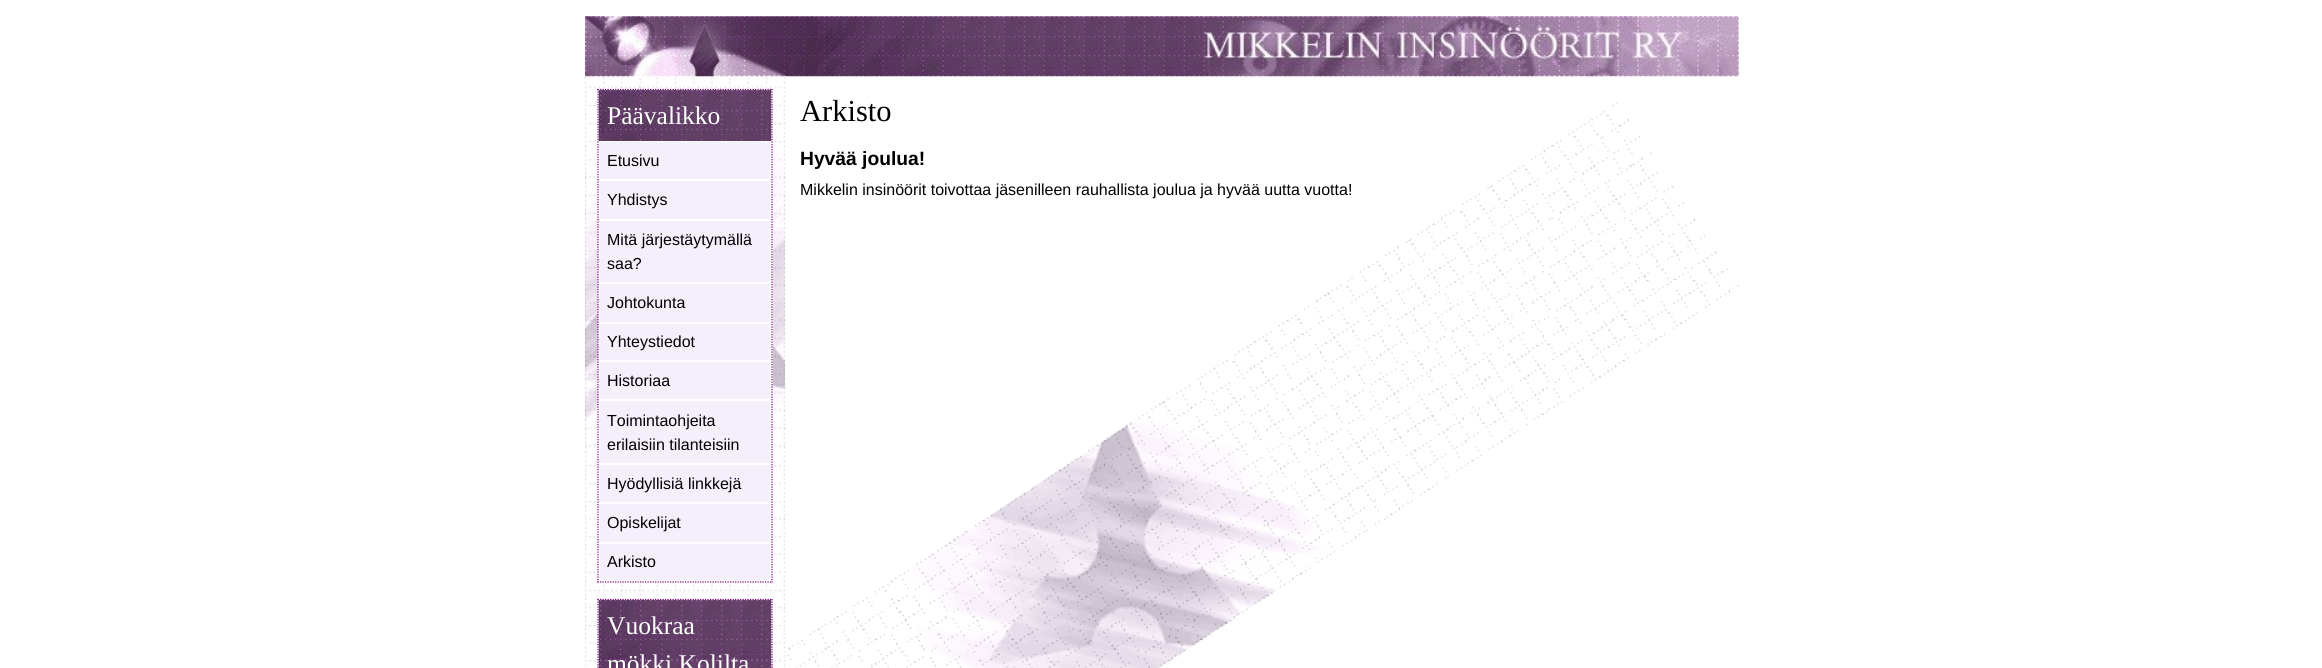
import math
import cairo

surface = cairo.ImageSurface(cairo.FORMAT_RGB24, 2322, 668)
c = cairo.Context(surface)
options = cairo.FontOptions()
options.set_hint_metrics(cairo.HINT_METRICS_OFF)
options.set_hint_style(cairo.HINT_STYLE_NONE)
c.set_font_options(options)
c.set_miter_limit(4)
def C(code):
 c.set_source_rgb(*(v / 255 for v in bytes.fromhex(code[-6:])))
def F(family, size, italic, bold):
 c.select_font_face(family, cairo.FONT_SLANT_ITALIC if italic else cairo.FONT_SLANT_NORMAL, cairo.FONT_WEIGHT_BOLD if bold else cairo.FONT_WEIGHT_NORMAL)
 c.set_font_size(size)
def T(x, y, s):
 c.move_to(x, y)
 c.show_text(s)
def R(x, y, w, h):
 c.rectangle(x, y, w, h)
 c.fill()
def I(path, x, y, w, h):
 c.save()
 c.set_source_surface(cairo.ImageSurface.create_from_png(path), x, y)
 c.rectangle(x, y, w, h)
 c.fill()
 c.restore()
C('ffffff')
c.paint()
I('1.png',585,76,1154,592)
I('2.png',585,16,1154,61)
C('ffffff')
R(598,90,175,493)
c.new_path()
c.move_to(597.5,89.5)
c.line_to(772.5,89.5)
C('800080')
c.set_line_width(1.2)
c.set_dash([1.25,1.25])
c.stroke()
c.new_path()
c.move_to(772,89)
c.line_to(772,582.5)
c.stroke()
c.new_path()
c.move_to(597.5,582)
c.line_to(772.5,582)
c.stroke()
c.new_path()
c.move_to(598,89)
c.line_to(598,582.5)
c.stroke()
I('3.png',598,90,174,52)
F('Liberation Serif',25.5,0,0)
C('ffffff')
T(607,124,'Päävalikko')
C('f5effb')
c.rectangle(599.5,141.5,171,38)
c.fill_preserve()
C('ffffff')
c.set_line_width(1)
c.set_dash([])
c.stroke()
F('Liberation Sans',16,0,0)
C('000000')
T(607,166,'Etusivu')
C('f5effb')
R(600,181,170,38)
C('000000')
T(607,205,'Yhdistys')
C('f5effb')
R(600,221,170,61)
C('000000')
T(607,245,'Mitä järjestäytymällä')
T(607,269,'saa?')
C('f5effb')
R(600,284,170,38)
C('000000')
T(607,308,'Johtokunta')
C('f5effb')
R(600,324,170,36)
C('000000')
T(607,347,'Yhteystiedot')
C('f5effb')
R(600,362,170,37)
C('000000')
T(607,386,'Historiaa')
C('f5effb')
R(600,401,170,62)
C('000000')
T(607,426,'Toimintaohjeita')
T(607,450,'erilaisiin tilanteisiin')
C('f5effb')
R(600,465,170,37)
C('000000')
T(607,489,'Hyödyllisiä linkkejä')
C('f5effb')
R(600,504,170,38)
C('000000')
T(607,528,'Opiskelijat')
C('f5effb')
R(600,544,170,36)
C('000000')
T(607,567,'Arkisto')
C('ffffff')
R(598,599,175,68)
c.new_path()
c.move_to(597.5,599.5)
c.line_to(772.5,599.5)
C('800080')
c.set_line_width(1.2)
c.set_dash([1.25,1.25])
c.stroke()
c.new_path()
c.move_to(772,599)
c.line_to(772,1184)
c.stroke()
c.new_path()
c.move_to(598,599)
c.line_to(598,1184)
c.stroke()
I('4.png',598,600,174,68)
F('Liberation Serif',25.5,0,0)
C('ffffff')
T(607,634,'Vuokraa')
T(607,672,'mökki Kolilta')
F('Liberation Serif',30.5,0,0)
C('000000')
T(800,121,'Arkisto')
F('Liberation Sans',19.25,0,1)
T(800,165,'Hyvää joulua!')
F('Liberation Sans',16,0,0)
T(800,195,'Mikkelin insinöörit toivottaa jäsenilleen rauhallista joulua ja hyvää uutta vuotta!')
surface.write_to_png('o.png')
